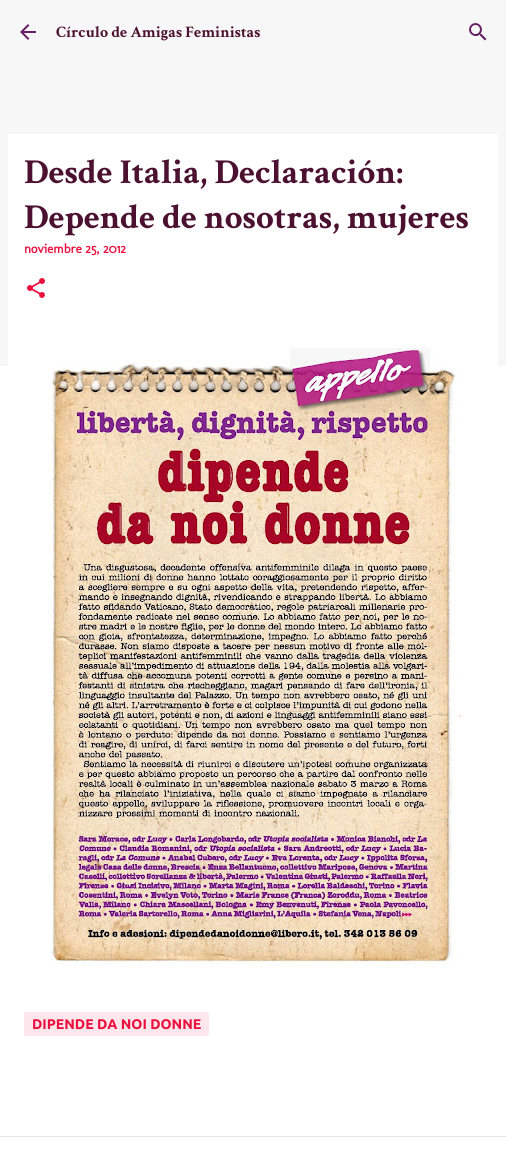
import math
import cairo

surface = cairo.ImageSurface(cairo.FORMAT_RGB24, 506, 1158)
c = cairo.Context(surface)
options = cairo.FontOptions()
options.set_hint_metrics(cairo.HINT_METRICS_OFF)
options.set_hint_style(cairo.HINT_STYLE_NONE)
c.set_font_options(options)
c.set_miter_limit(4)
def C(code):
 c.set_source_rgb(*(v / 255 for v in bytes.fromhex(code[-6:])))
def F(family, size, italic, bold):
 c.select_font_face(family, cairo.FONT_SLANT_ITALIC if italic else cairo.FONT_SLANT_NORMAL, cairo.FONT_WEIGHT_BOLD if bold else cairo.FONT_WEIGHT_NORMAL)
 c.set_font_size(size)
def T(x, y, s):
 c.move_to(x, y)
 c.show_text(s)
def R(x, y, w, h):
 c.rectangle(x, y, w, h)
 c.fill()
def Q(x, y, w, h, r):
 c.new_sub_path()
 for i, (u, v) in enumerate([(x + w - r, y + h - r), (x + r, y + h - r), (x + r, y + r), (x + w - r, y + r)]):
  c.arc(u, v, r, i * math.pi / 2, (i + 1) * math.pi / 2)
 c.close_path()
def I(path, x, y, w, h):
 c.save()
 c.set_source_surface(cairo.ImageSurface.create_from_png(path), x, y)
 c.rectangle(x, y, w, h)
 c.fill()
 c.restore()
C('f7f7f7')
c.paint()
I('1.png',20,24,16,16)
F('Crimson Text',16,0,1)
C('4c1130')
T(56,37,'Círculo de Amigas Feministas')
I('2.png',469,23,18,18)
C('ffffff')
R(0,366,506,770)
R(8,134,490,232)
F('Crimson Text',35,0,1)
C('4c1130')
T(24,183,'Desde Italia, Declaración:')
T(24,228,'Depende de nosotras, mujeres')
F('Molengo',13,0,1)
C('ea0f3d')
T(24,253,'noviembre 25, 2012')
I('3.png',27,278,18,20)
I('4.png',51,344,413,624)
C('fde7ec')
Q(24,1012,185,24,2)
c.fill()
F('Ubuntu',14,0,1)
C('ea0f3d')
T(32,1029,'DIPENDE DA NOI DONNE')
C('ffffff')
R(0,1137,506,21)
C('e5e5e5')
R(0,1136,506,1)
surface.write_to_png('o.png')
